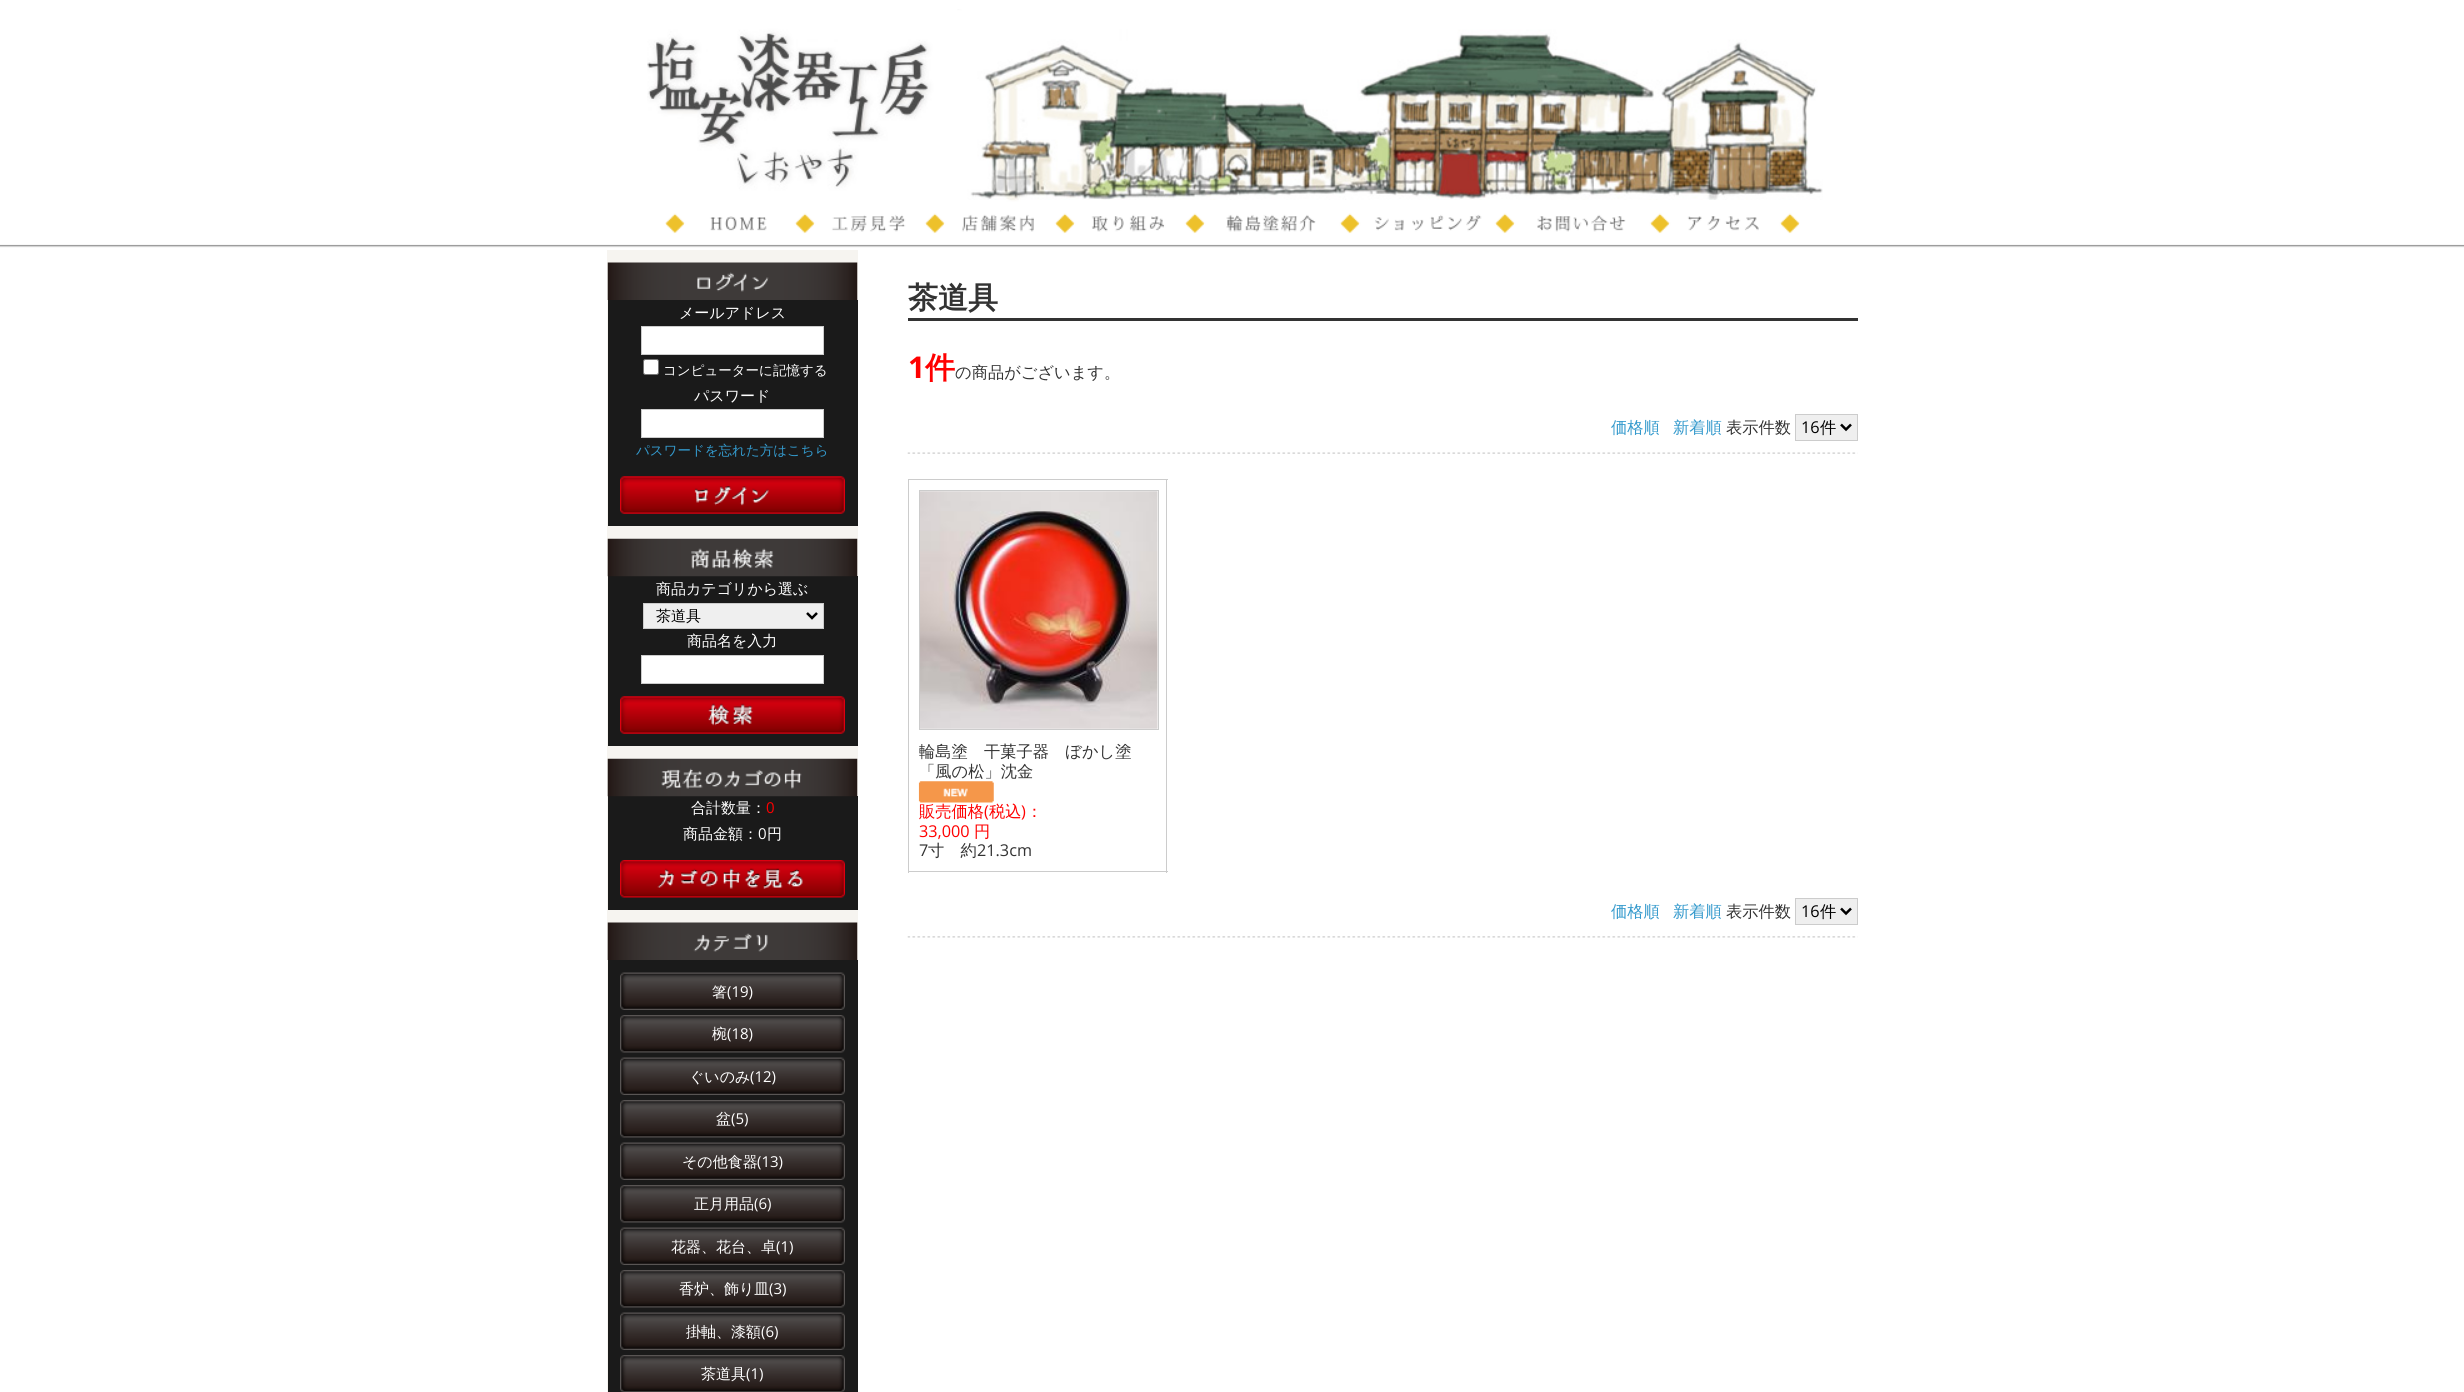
import math
import cairo

surface = cairo.ImageSurface(cairo.FORMAT_RGB24, 2464, 1392)
c = cairo.Context(surface)
options = cairo.FontOptions()
options.set_hint_metrics(cairo.HINT_METRICS_OFF)
options.set_hint_style(cairo.HINT_STYLE_NONE)
c.set_font_options(options)
c.set_miter_limit(4)
def C(code):
 c.set_source_rgb(*(v / 255 for v in bytes.fromhex(code[-6:])))
def F(family, size, italic, bold):
 c.select_font_face(family, cairo.FONT_SLANT_ITALIC if italic else cairo.FONT_SLANT_NORMAL, cairo.FONT_WEIGHT_BOLD if bold else cairo.FONT_WEIGHT_NORMAL)
 c.set_font_size(size)
def T(x, y, s):
 c.move_to(x, y)
 c.show_text(s)
def R(x, y, w, h):
 c.rectangle(x, y, w, h)
 c.fill()
def Q(x, y, w, h, r):
 c.new_sub_path()
 for i, (u, v) in enumerate([(x + w - r, y + h - r), (x + r, y + h - r), (x + r, y + r), (x + w - r, y + r)]):
  c.arc(u, v, r, i * math.pi / 2, (i + 1) * math.pi / 2)
 c.close_path()
def I(path, x, y, w, h):
 c.save()
 c.set_source_surface(cairo.ImageSurface.create_from_png(path), x, y)
 c.rectangle(x, y, w, h)
 c.fill()
 c.restore()
C('ffffff')
c.paint()
I('1.png',647,9,1176,191)
I('2.png',0,244,2464,4)
I('3.png',665,213,140,21)
I('4.png',805,213,130,21)
I('5.png',935,200,130,34)
I('6.png',1065,213,130,21)
I('7.png',1195,213,155,21)
I('8.png',1350,213,155,21)
I('9.png',1505,213,155,21)
I('10.png',1660,213,140,21)
C('f6f4f0')
R(607,250,251,1142)
I('11.png',607,262,251,38)
C('1a1a1a')
R(608,300,250,226)
F('WenQuanYi Zen Hei Medium',15,0,0)
C('ffffff')
T(679,318,'メールアドレス')
c.rectangle(641.5,326.5,182,28)
c.fill_preserve()
C('cccccc')
c.set_line_width(1)
c.stroke()
C('ffffff')
Q(643.5,359.5,15,15,2)
c.fill_preserve()
C('767676')
c.stroke()
F('WenQuanYi Zen Hei Medium',13.5,0,0)
C('ffffff')
T(663,375,'コンピューターに記憶する')
F('WenQuanYi Zen Hei Medium',15,0,0)
T(694,401,'パスワード')
c.rectangle(641.5,409.5,182,28)
c.fill_preserve()
C('cccccc')
c.stroke()
F('WenQuanYi Zen Hei Medium',13.5,0,0)
C('3399cc')
T(636,455,'パスワードを忘れた方はこちら')
I('12.png',620,476,225,38)
C('1a1a1a')
R(608,576,250,170)
I('13.png',607,538,251,39)
F('WenQuanYi Zen Hei Medium',15,0,0)
C('ffffff')
T(656,594,'商品カテゴリから選ぶ')
C('efefef')
c.rectangle(643.5,603.5,180,25)
c.fill_preserve()
C('cccccc')
c.stroke()
c.new_path()
c.move_to(807,613)
c.line_to(812,618)
c.line_to(817,613)
C('000000')
c.set_line_width(2.5)
c.stroke()
T(656,621,'茶道具')
C('ffffff')
T(687,646,'商品名を入力')
c.rectangle(641.5,655.5,182,28)
c.fill_preserve()
C('cccccc')
c.set_line_width(1)
c.stroke()
I('14.png',620,696,225,38)
C('1a1a1a')
R(608,796,250,114)
I('15.png',607,758,251,39)
C('ffffff')
T(691,813,'合計数量：')
F('Open Sans',15,0,0)
C('ff0000')
T(766,813,'0')
F('WenQuanYi Zen Hei Medium',15,0,0)
C('ffffff')
T(683,839,'商品金額：')
F('Open Sans',15,0,0)
T(758,839,'0')
F('WenQuanYi Zen Hei Medium',15,0,0)
T(767,839,'円')
I('16.png',620,860,225,38)
I('17.png',607,922,251,38)
C('1a1a1a')
R(608,960,250,432)
I('18.png',620,972,225,38)
C('ffffff')
T(712,997,'箸')
F('Open Sans',15,0,0)
T(727,997,'(19)')
I('19.png',620,1015,225,38)
F('WenQuanYi Zen Hei Medium',15,0,0)
T(712,1039,'椀')
F('Open Sans',15,0,0)
T(727,1039,'(18)')
I('18.png',620,1057,225,38)
F('WenQuanYi Zen Hei Medium',15,0,0)
T(689,1082,'ぐいのみ')
F('Open Sans',15,0,0)
T(750,1082,'(12)')
I('19.png',620,1100,225,38)
F('WenQuanYi Zen Hei Medium',15,0,0)
T(716,1124,'盆')
F('Open Sans',15,0,0)
T(731,1124,'(5)')
I('20.png',620,1142,225,38)
F('WenQuanYi Zen Hei Medium',15,0,0)
T(682,1167,'その他食器')
F('Open Sans',15,0,0)
T(757,1167,'(13)')
I('19.png',620,1185,225,38)
F('WenQuanYi Zen Hei Medium',15,0,0)
T(694,1209,'正月用品')
F('Open Sans',15,0,0)
T(754,1209,'(6)')
I('18.png',620,1227,225,38)
F('WenQuanYi Zen Hei Medium',15,0,0)
T(671,1252,'花器、花台、卓')
F('Open Sans',15,0,0)
T(776,1252,'(1)')
I('19.png',620,1270,225,38)
F('WenQuanYi Zen Hei Medium',15,0,0)
T(679,1294,'香炉、飾り皿')
F('Open Sans',15,0,0)
T(769,1294,'(3)')
I('18.png',620,1312,225,38)
F('WenQuanYi Zen Hei Medium',15,0,0)
T(686,1337,'掛軸、漆額')
F('Open Sans',15,0,0)
T(761,1337,'(6)')
I('21.png',620,1355,225,37)
F('WenQuanYi Zen Hei Medium',15,0,0)
T(701,1379,'茶道具')
F('Open Sans',15,0,0)
T(746,1379,'(1)')
C('333333')
R(908,318,950,3)
F('WenQuanYi Zen Hei',30,0,1)
T(908,308,'茶道具')
F('Open Sans',30,0,1)
C('ff0000')
T(908,378,'1')
F('WenQuanYi Zen Hei',30,0,1)
T(925,378,'件')
F('WenQuanYi Zen Hei Medium',16.25,0,0)
C('333333')
T(955,378,'の商品がございます。')
I('22.png',907,452,951,2)
C('3399cc')
T(1611,433,'価格順')
T(1673,433,'新着順')
C('333333')
T(1726,433,'表示件数')
C('efefef')
c.rectangle(1795.5,414.5,62,26)
c.fill_preserve()
C('cccccc')
c.stroke()
c.new_path()
c.move_to(1841,424.5)
c.line_to(1846,429.5)
c.line_to(1851,424.5)
C('000000')
c.set_line_width(2.5)
c.stroke()
F('Open Sans',16.25,0,0)
T(1801,433,'16')
F('WenQuanYi Zen Hei Medium',16.25,0,0)
T(1820,433,'件')
C('cccccc')
R(908,479,260,1)
R(908,479,1,394)
R(1166,479,1,394)
R(908,871,260,1)
c.rectangle(919.5,490.5,239,239)
c.set_line_width(1)
c.stroke()
I('23.png',920,491,238,238)
C('333333')
T(919,757,'輪島塗　干菓子器　ぼかし塗')
T(919,777,'「風の松」沈金')
I('24.png',918,781,76,22)
C('ff0000')
T(919,817,'販売価格')
F('Open Sans',16.25,0,0)
T(984,817,'(')
F('WenQuanYi Zen Hei Medium',16.25,0,0)
T(989,817,'税込 ：')
F('Open Sans',16.25,0,0)
T(1021,817,')')
T(919,837,'33,000')
F('WenQuanYi Zen Hei Medium',16.25,0,0)
T(974,837,'円')
F('Open Sans',16.25,0,0)
C('333333')
T(919,856,'7')
F('WenQuanYi Zen Hei Medium',16.25,0,0)
T(928,856,'寸　約')
F('Open Sans',16.25,0,0)
T(977,856,'21.3cm')
I('25.png',907,936,951,2)
F('WenQuanYi Zen Hei Medium',16.25,0,0)
C('3399cc')
T(1611,917,'価格順')
T(1673,917,'新着順')
C('333333')
T(1726,917,'表示件数')
C('efefef')
c.rectangle(1795.5,898.5,62,26)
c.fill_preserve()
C('cccccc')
c.stroke()
c.new_path()
c.move_to(1841,908.5)
c.line_to(1846,913.5)
c.line_to(1851,908.5)
C('000000')
c.set_line_width(2.5)
c.stroke()
F('Open Sans',16.25,0,0)
T(1801,917,'16')
F('WenQuanYi Zen Hei Medium',16.25,0,0)
T(1820,917,'件')
surface.write_to_png('o.png')
